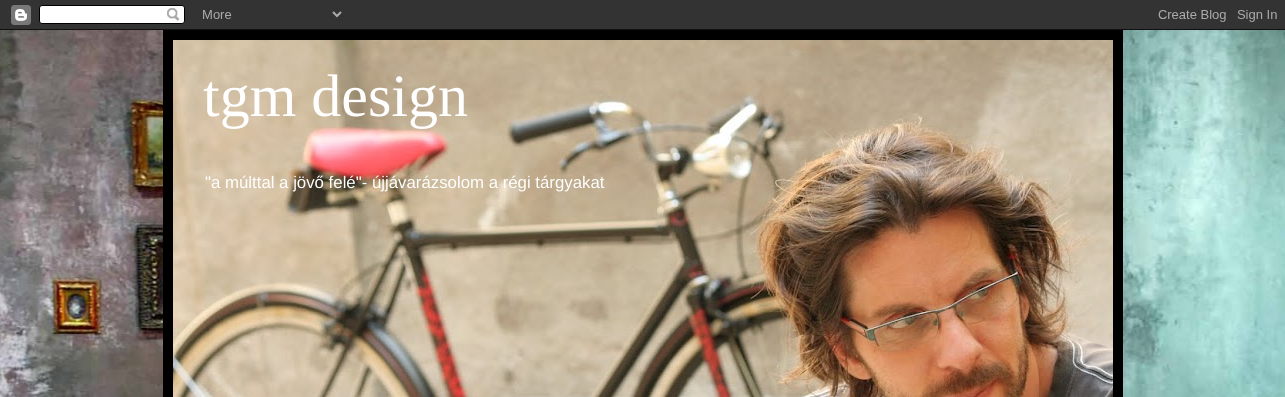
import math
import cairo

surface = cairo.ImageSurface(cairo.FORMAT_RGB24, 1285, 397)
c = cairo.Context(surface)
options = cairo.FontOptions()
options.set_hint_metrics(cairo.HINT_METRICS_OFF)
options.set_hint_style(cairo.HINT_STYLE_NONE)
c.set_font_options(options)
c.set_miter_limit(4)
def C(code):
 c.set_source_rgb(*(v / 255 for v in bytes.fromhex(code[-6:])))
def F(family, size, italic, bold):
 c.select_font_face(family, cairo.FONT_SLANT_ITALIC if italic else cairo.FONT_SLANT_NORMAL, cairo.FONT_WEIGHT_BOLD if bold else cairo.FONT_WEIGHT_NORMAL)
 c.set_font_size(size)
def T(x, y, s):
 c.move_to(x, y)
 c.show_text(s)
def R(x, y, w, h):
 c.rectangle(x, y, w, h)
 c.fill()
def Q(x, y, w, h, r):
 c.new_sub_path()
 for i, (u, v) in enumerate([(x + w - r, y + h - r), (x + r, y + h - r), (x + r, y + r), (x + w - r, y + r)]):
  c.arc(u, v, r, i * math.pi / 2, (i + 1) * math.pi / 2)
 c.close_path()
def S(x, y, w, h, r, blur, alpha):
 c.push_group_with_content(cairo.CONTENT_ALPHA)
 c.set_operator(cairo.OPERATOR_SOURCE)
 for i in range(15, -16, -2):
  e = blur * i / 6
  if min(w, h) + 2 * e > 0:
   c.set_source_rgba(0, 0, 0, alpha * math.erfc((i - 1) / 8.5) / 2)
   Q(x - e, y - e, w + 2 * e, h + 2 * e, max(0, min(r + e + blur * .6, min(w, h) / 2 + e)))
   c.fill()
 c.mask(c.pop_group())
def I(path, x, y, w, h):
 c.save()
 c.set_source_surface(cairo.ImageSurface.create_from_png(path), x, y)
 c.rectangle(x, y, w, h)
 c.fill()
 c.restore()
C('ffffff')
c.paint()
I('1.png',0,30,1285,367)
C('000000')
S(163,30,960,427,0,20,.15)
I('2.png',0,0,1285,30)
C('000000')
R(163,30,960,367)
I('3.png',173,40,940,357)
F('Liberation Serif',60,0,0)
C('ffffff')
T(203,116,'tgm design')
F('Liberation Sans',16.8,0,0)
T(205,188,'"a múlttal a jövő felé"- újjávarázsolom a régi tárgyakat')
surface.write_to_png('o.png')
